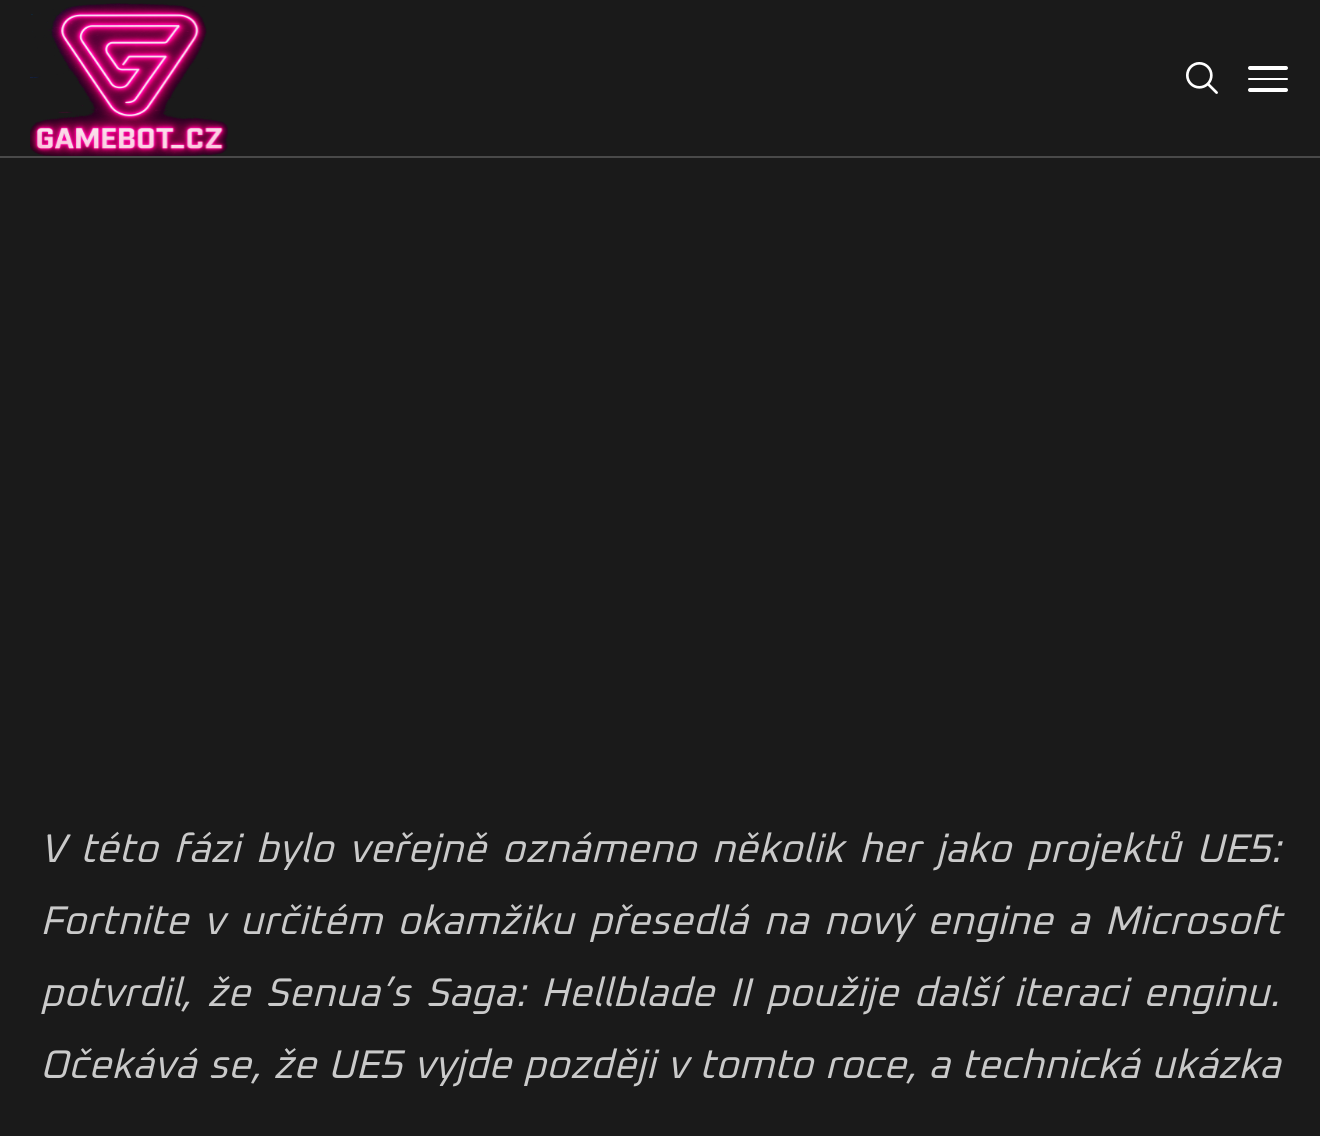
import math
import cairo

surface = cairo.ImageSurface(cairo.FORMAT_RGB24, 1320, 1136)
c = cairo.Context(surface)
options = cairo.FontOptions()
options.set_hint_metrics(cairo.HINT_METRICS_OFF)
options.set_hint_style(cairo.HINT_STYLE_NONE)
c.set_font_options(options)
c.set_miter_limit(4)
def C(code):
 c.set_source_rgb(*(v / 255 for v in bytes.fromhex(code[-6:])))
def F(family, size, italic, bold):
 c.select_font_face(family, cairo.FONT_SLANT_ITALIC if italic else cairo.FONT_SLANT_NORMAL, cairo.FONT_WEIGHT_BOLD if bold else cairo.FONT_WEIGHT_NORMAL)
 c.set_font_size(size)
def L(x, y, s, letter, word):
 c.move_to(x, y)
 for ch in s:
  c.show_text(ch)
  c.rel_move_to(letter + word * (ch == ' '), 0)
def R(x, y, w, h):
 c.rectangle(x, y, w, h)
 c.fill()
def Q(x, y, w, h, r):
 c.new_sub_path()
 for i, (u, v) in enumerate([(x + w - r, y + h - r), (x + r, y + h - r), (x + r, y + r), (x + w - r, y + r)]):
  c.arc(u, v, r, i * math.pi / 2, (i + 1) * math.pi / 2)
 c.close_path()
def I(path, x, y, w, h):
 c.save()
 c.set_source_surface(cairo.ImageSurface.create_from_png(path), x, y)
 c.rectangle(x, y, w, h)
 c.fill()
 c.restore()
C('1a1a1a')
c.paint()
C('494949')
R(0,156,1320,2)
I('1.png',30,3,198,153)
I('2.png',1186,62,32,32)
C('ffffff')
Q(1248,66,40,4,2)
c.fill()
Q(1248,78,40,2,1)
c.fill()
Q(1248,88,40,4,2)
c.fill()
F('Oxanium',40,1,0)
C('cacaca')
L(40,862,'V této fázi bylo veřejně oznámeno několik her jako projektů UE5:',0,5.75)
L(40,934,'Fortnite v určitém okamžiku přesedlá na nový engine a Microsoft',0,5.5)
L(40,1006,'potvrdil, že Senua’s Saga: Hellblade II použije další iteraci enginu.',0,5.5)
L(40,1078,'Očekává se, že UE5 vyjde později v tomto roce, a technická ukázka',0,2)
surface.write_to_png('o.png')
